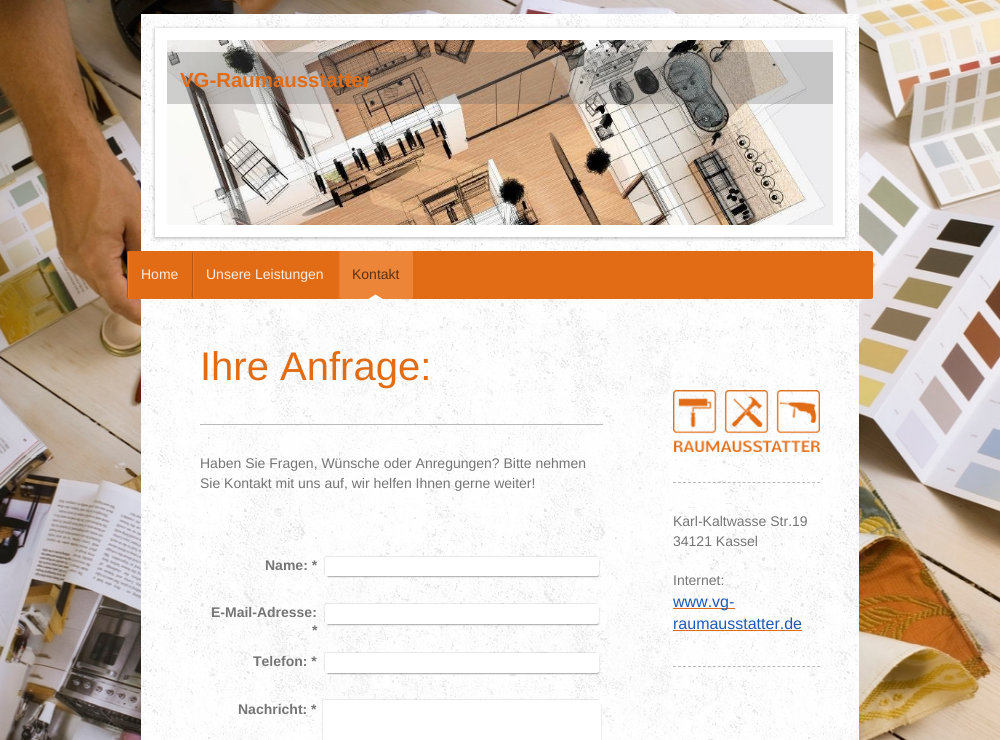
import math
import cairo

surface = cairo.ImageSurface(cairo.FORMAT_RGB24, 1000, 740)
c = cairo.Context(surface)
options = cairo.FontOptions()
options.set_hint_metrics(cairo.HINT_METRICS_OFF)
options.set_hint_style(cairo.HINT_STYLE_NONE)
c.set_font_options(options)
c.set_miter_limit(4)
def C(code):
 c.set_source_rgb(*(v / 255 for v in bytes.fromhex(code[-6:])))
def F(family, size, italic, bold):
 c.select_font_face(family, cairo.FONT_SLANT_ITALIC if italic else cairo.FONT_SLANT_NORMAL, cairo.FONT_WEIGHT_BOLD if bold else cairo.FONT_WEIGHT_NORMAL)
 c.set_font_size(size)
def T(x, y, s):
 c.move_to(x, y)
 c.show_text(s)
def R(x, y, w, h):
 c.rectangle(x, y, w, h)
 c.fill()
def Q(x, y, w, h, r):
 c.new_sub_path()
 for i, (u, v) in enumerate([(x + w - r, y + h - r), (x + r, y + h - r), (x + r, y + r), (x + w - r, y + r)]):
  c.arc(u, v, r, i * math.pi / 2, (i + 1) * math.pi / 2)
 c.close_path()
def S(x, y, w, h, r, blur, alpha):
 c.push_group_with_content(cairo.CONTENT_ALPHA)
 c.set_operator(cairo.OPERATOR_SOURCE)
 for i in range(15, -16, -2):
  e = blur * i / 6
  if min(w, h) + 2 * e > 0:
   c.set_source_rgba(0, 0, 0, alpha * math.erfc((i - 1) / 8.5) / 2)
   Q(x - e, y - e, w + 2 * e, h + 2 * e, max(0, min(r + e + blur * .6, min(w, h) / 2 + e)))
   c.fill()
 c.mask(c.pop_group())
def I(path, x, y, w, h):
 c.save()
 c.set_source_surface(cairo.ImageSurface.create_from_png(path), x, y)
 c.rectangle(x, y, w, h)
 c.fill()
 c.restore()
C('ffffff')
c.paint()
I('1.png',0,0,1000,740)
C('ffffff')
R(141,14,718,726)
I('2.png',141,14,718,726)
C('000000')
S(155,29,690,209,0,2,.3)
c.rectangle(161,34,678,197)
C('ffffff')
c.set_line_width(12)
c.stroke()
C('eeeeee')
R(826,40,7,185)
I('3.png',167,40,659,185)
c.set_source_rgba(0.4,0.4,0.4,0.29)
R(167,52,666,52)
F('Liberation Sans',20.4,0,1)
C('e16c15')
T(180,87,'VG-Raumausstatter')
Q(127,251,746,48,2)
c.fill()
C('eb7925')
c.new_path()
c.move_to(129,251)
c.curve_to(128,251,127,252,127,253)
c.line_to(127,297)
c.curve_to(127,298,128,299,129,299)
c.line_to(131,299)
c.curve_to(130,299,129,298,129,297)
c.line_to(129,253)
c.curve_to(129,252,130,251,131,251)
c.close_path()
c.fill()
C('b25611')
c.new_path()
c.move_to(129,251)
c.line_to(128,251)
c.line_to(127,253)
c.line_to(127,290)
c.curve_to(127,294,125,299,130,299)
c.curve_to(129,299,128,298,128,297)
c.line_to(128,253)
c.curve_to(128,252,129,251,130,251)
c.close_path()
c.fill()
F('Liberation Sans',14,0,0)
C('fbece0')
T(141,279,'Home')
C('eb7925')
c.new_path()
c.move_to(194,251)
c.curve_to(193,251,192,252,192,253)
c.line_to(192,297)
c.curve_to(192,298,193,299,194,299)
c.line_to(196,299)
c.curve_to(195,299,194,298,194,297)
c.line_to(194,253)
c.curve_to(194,252,195,251,196,251)
c.close_path()
c.fill()
C('b25611')
c.new_path()
c.move_to(194,251)
c.line_to(193,251)
c.line_to(192,253)
c.line_to(192,290)
c.curve_to(192,294,190,299,195,299)
c.curve_to(194,299,193,298,193,297)
c.line_to(193,253)
c.curve_to(193,252,194,251,195,251)
c.close_path()
c.fill()
C('fbece0')
T(206,279,'Unsere Leistungen')
C('ec8538')
Q(338,251,75,48,2)
c.fill()
C('eb7925')
c.new_path()
c.move_to(340,251)
c.curve_to(339,251,338,252,338,253)
c.line_to(338,297)
c.curve_to(338,298,339,299,340,299)
c.line_to(342,299)
c.curve_to(341,299,340,298,340,297)
c.line_to(340,253)
c.curve_to(340,252,341,251,342,251)
c.close_path()
c.fill()
C('e56e16')
c.new_path()
c.move_to(340,251)
c.line_to(339,251)
c.line_to(338,253)
c.line_to(338,290)
c.curve_to(338,294,336,299,341,299)
c.curve_to(340,299,339,298,339,297)
c.line_to(339,253)
c.curve_to(339,252,340,251,341,251)
c.close_path()
c.fill()
C('60300d')
T(352,279,'Kontakt')
C('ffffff')
c.new_path()
c.move_to(383.5,299.5)
c.line_to(367.5,299.5)
c.line_to(375.5,294.5)
c.close_path()
c.fill()
F('Liberation Sans',40,0,0)
C('e16c15')
T(200,380,'Ihre Anfrage:')
C('bababa')
R(200,424,403,1)
F('Liberation Sans',14,0,0)
C('757575')
T(200,468,'Haben Sie Fragen, Wünsche oder Anregungen? Bitte nehmen')
T(200,488,'Sie Kontakt mit uns auf, wir helfen Ihnen gerne weiter!')
c.set_source_rgba(0,0,0,0.08)
c.new_path()
c.move_to(326,556)
c.curve_to(323,556,324,564,324,566)
c.curve_to(324,567,323,574,325,575)
c.line_to(325,566)
c.curve_to(325,565,324,557,327,557)
c.line_to(598,557)
c.line_to(596,556)
c.close_path()
c.fill()
C('000000')
S(328,561,270,15,0,1,.8)
F('Liberation Sans',14,0,1)
C('757575')
T(265,570,'Name: *')
C('ffffff')
Q(325,557,274,19,2)
c.fill()
c.set_source_rgba(0,0,0,0.08)
c.new_path()
c.move_to(326,603)
c.curve_to(323,603,324,611,324,613)
c.curve_to(324,615,323,622,325,623)
c.line_to(325,614)
c.curve_to(325,612,323,604,327,604)
c.line_to(598,604)
c.line_to(596,603)
c.close_path()
c.fill()
C('000000')
S(328,608,270,16,0,1,.8)
C('757575')
T(211,617,'E-Mail-Adresse:')
T(312,635,'*')
C('ffffff')
Q(325,604,274,20,2)
c.fill()
c.set_source_rgba(0,0,0,0.08)
c.new_path()
c.move_to(326,652)
c.curve_to(323,652,324,660,324,662)
c.curve_to(324,664,323,671,325,672)
c.line_to(325,663)
c.curve_to(325,661,323,653,327,653)
c.line_to(598,653)
c.line_to(596,652)
c.close_path()
c.fill()
C('000000')
S(328,657,270,16,0,1,.8)
C('757575')
T(253,666,'Telefon: *')
C('ffffff')
Q(325,653,274,20,2)
c.fill()
c.set_source_rgba(0,0,0,0.08)
c.new_path()
c.move_to(324,699)
c.line_to(322,700)
c.line_to(322,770)
c.line_to(323,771)
c.line_to(323,713)
c.curve_to(323,709,321,700,325,700)
c.line_to(600,700)
c.line_to(598,699)
c.close_path()
c.fill()
C('000000')
S(326,704,274,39,0,1,.8)
C('757575')
T(238,714,'Nachricht: *')
C('ffffff')
Q(323,700,278,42,2)
c.fill()
I('4.png',673,390,147,62)
c.new_path()
c.move_to(673,482.5)
c.line_to(820,482.5)
C('bababa')
c.set_line_width(1)
c.set_dash([3,1.97])
c.stroke()
F('Liberation Sans',14,0,0)
C('757575')
T(673,526,'Karl-Kaltwasse Str.19')
T(673,546,'34121 Kassel')
T(673,585,'Internet:')
C('e16c15')
R(673,608,62,1)
F('Liberation Sans',16,0,0)
C('1e5ab5')
T(673,607,'www.vg-')
T(673,629,'raumausstatter.de')
C('e16c15')
R(673,630,129,1)
c.new_path()
c.move_to(673,666.5)
c.line_to(820,666.5)
C('bababa')
c.stroke()
surface.write_to_png('o.png')
